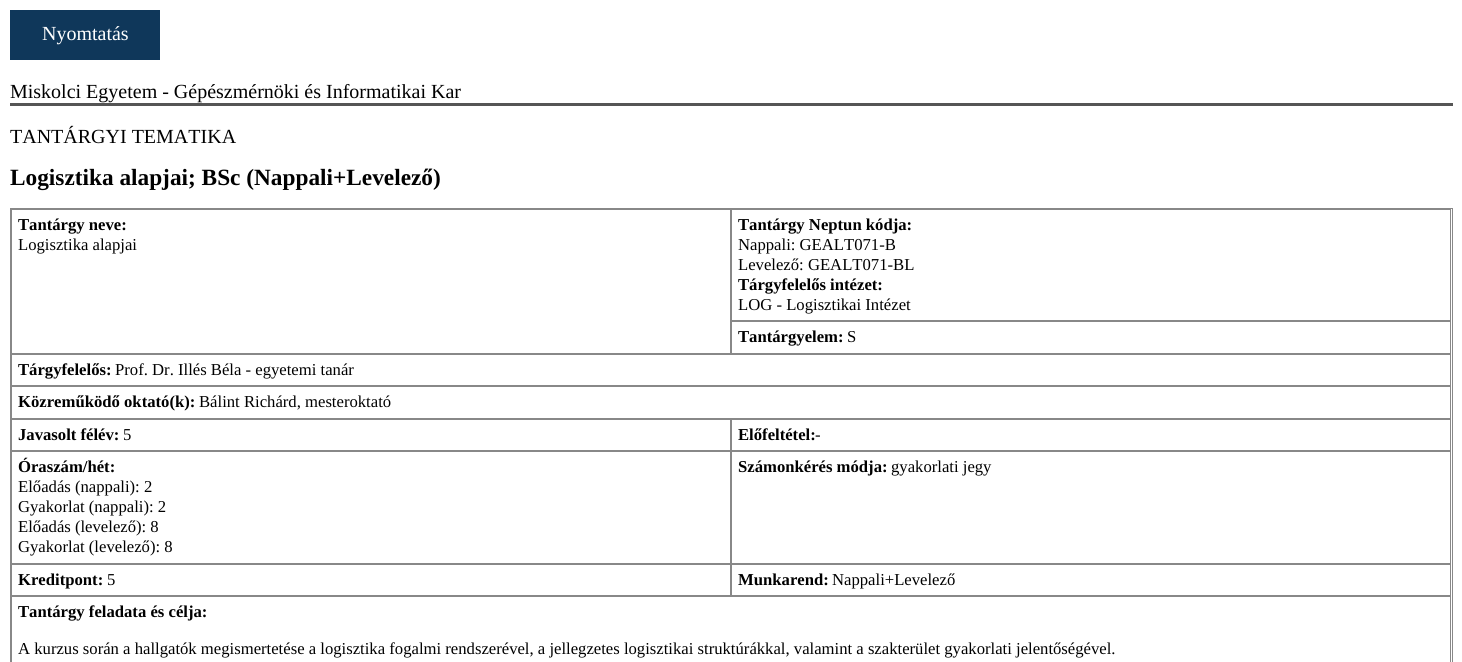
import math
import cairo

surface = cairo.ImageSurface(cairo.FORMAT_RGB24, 1462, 662)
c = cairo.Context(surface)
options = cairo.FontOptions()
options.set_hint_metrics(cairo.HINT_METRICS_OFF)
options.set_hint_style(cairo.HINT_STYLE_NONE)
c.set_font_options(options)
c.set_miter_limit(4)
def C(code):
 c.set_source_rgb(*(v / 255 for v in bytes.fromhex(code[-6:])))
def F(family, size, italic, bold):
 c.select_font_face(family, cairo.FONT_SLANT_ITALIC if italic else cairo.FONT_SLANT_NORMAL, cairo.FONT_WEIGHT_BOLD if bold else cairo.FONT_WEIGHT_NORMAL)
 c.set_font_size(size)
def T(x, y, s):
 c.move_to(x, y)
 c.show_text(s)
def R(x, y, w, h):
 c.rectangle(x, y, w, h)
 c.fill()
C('ffffff')
c.paint()
C('0f375a')
R(10,10,150,50)
F('Liberation Serif',20,0,0)
C('ffffff')
T(42,40,'Nyomtatás')
C('555555')
R(10,103,1443,3)
C('000000')
T(10,98,'Miskolci Egyetem - Gépészmérnöki és Informatikai Kar')
T(10,143,'TANTÁRGYI TEMATIKA')
F('Liberation Serif',23.3,0,1)
T(10,185,'Logisztika alapjai; BSc (Nappali+Levelező)')
c.rectangle(10.5,208.5,1442,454)
C('888888')
c.set_line_width(1)
c.stroke()
c.rectangle(11.5,209.5,719,144)
c.stroke()
F('Liberation Serif',16.67,0,1)
C('000000')
T(18,230,'Tantárgy neve:')
F('Liberation Serif',16.67,0,0)
T(18,250,'Logisztika alapjai')
c.rectangle(731.5,209.5,719,111)
C('888888')
c.stroke()
F('Liberation Serif',16.67,0,1)
C('000000')
T(738,230,'Tantárgy Neptun kódja:')
F('Liberation Serif',16.67,0,0)
T(738,250,'Nappali: GEALT071-B')
T(738,270,'Levelező: GEALT071-BL')
F('Liberation Serif',16.67,0,1)
T(738,290,'Tárgyfelelős intézet:')
F('Liberation Serif',16.67,0,0)
T(738,310,'LOG - Logisztikai Intézet')
c.rectangle(731.5,321.5,719,32)
C('888888')
c.stroke()
F('Liberation Serif',16.67,0,1)
C('000000')
T(738,342,'Tantárgyelem:')
F('Liberation Serif',16.67,0,0)
T(847,342,'S')
c.rectangle(11.5,354.5,1439,31)
C('888888')
c.stroke()
F('Liberation Serif',16.67,0,1)
C('000000')
T(18,375,'Tárgyfelelős:')
F('Liberation Serif',16.67,0,0)
T(115,375,'Prof. Dr. Illés Béla - egyetemi tanár')
c.rectangle(11.5,386.5,1439,32)
C('888888')
c.stroke()
F('Liberation Serif',16.67,0,1)
C('000000')
T(18,407,'Közreműködő oktató(k):')
F('Liberation Serif',16.67,0,0)
T(199,407,'Bálint Richárd, mesteroktató')
c.rectangle(11.5,419.5,719,31)
C('888888')
c.stroke()
F('Liberation Serif',16.67,0,1)
C('000000')
T(18,440,'Javasolt félév:')
F('Liberation Serif',16.67,0,0)
T(123,440,'5')
c.rectangle(731.5,419.5,719,31)
C('888888')
c.stroke()
F('Liberation Serif',16.67,0,1)
C('000000')
T(738,440,'Előfeltétel:')
F('Liberation Serif',16.67,0,0)
T(815,440,'-')
c.rectangle(11.5,451.5,719,112)
C('888888')
c.stroke()
F('Liberation Serif',16.67,0,1)
C('000000')
T(18,472,'Óraszám/hét:')
F('Liberation Serif',16.67,0,0)
T(18,492,'Előadás (nappali): 2')
T(18,512,'Gyakorlat (nappali): 2')
T(18,532,'Előadás (levelező): 8')
T(18,552,'Gyakorlat (levelező): 8')
c.rectangle(731.5,451.5,719,112)
C('888888')
c.stroke()
F('Liberation Serif',16.67,0,1)
C('000000')
T(738,472,'Számonkérés módja:')
F('Liberation Serif',16.67,0,0)
T(891,472,'gyakorlati jegy')
c.rectangle(11.5,564.5,719,31)
C('888888')
c.stroke()
F('Liberation Serif',16.67,0,1)
C('000000')
T(18,585,'Kreditpont:')
F('Liberation Serif',16.67,0,0)
T(107,585,'5')
c.rectangle(731.5,564.5,719,31)
C('888888')
c.stroke()
F('Liberation Serif',16.67,0,1)
C('000000')
T(738,585,'Munkarend:')
F('Liberation Serif',16.67,0,0)
T(832,585,'Nappali+Levelező')
c.rectangle(11.5,596.5,1439,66)
C('888888')
c.stroke()
F('Liberation Serif',16.67,0,1)
C('000000')
T(18,617,'Tantárgy feladata és célja:')
F('Liberation Serif',16.67,0,0)
T(18,654,'A kurzus során a hallgatók megismertetése a logisztika fogalmi rendszerével, a jellegzetes logisztikai struktúrákkal, valamint a szakterület gyakorlati jelentőségével.')
surface.write_to_png('o.png')
